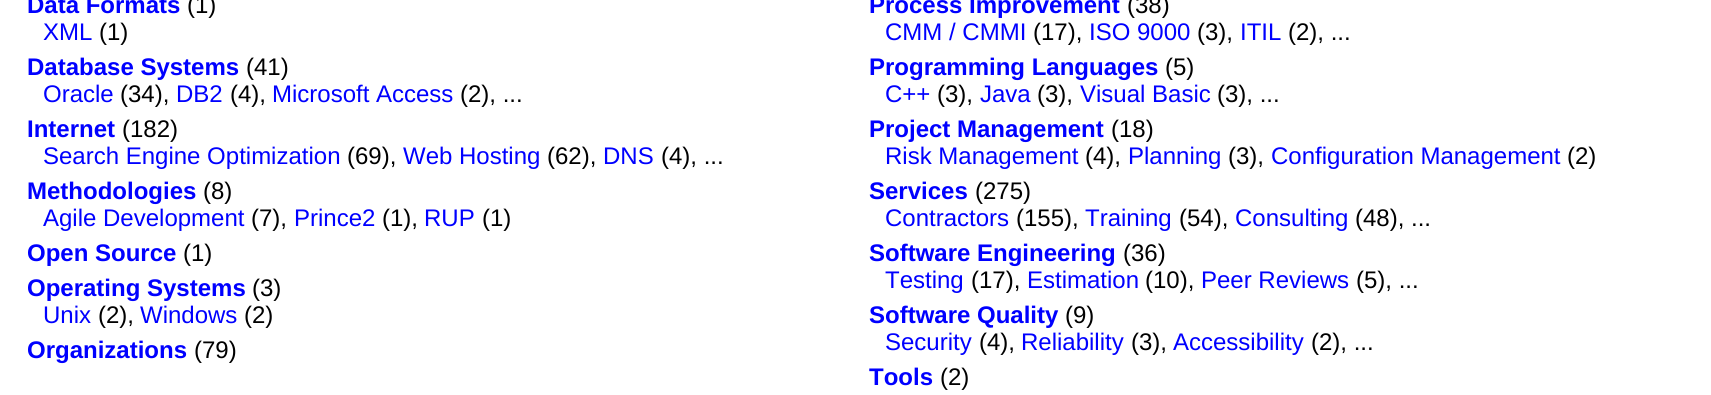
import math
import cairo

surface = cairo.ImageSurface(cairo.FORMAT_RGB24, 1711, 395)
c = cairo.Context(surface)
options = cairo.FontOptions()
options.set_hint_metrics(cairo.HINT_METRICS_OFF)
options.set_hint_style(cairo.HINT_STYLE_NONE)
c.set_font_options(options)
c.set_miter_limit(4)
def C(code):
 c.set_source_rgb(*(v / 255 for v in bytes.fromhex(code[-6:])))
def F(family, size, italic, bold):
 c.select_font_face(family, cairo.FONT_SLANT_ITALIC if italic else cairo.FONT_SLANT_NORMAL, cairo.FONT_WEIGHT_BOLD if bold else cairo.FONT_WEIGHT_NORMAL)
 c.set_font_size(size)
def T(x, y, s):
 c.move_to(x, y)
 c.show_text(s)
C('ffffff')
c.paint()
F('Liberation Sans',24,0,1)
C('0000ff')
T(27,13,'Data Formats')
F('Liberation Sans',24,0,0)
C('000000')
T(187,13,'(1)')
C('0000ff')
T(43,40,'XML')
C('000000')
T(99,40,'(1)')
F('Liberation Sans',24,0,1)
C('0000ff')
T(27,75,'Database Systems')
F('Liberation Sans',24,0,0)
C('000000')
T(246,75,'(41)')
C('0000ff')
T(43,102,'Oracle')
C('000000')
T(120,102,'(34),')
C('0000ff')
T(176,102,'DB2')
C('000000')
T(230,102,'(4),')
C('0000ff')
T(272,102,'Microsoft Access')
C('000000')
T(460,102,'(2), ...')
F('Liberation Sans',24,0,1)
C('0000ff')
T(27,137,'Internet')
F('Liberation Sans',24,0,0)
C('000000')
T(122,137,'(182)')
C('0000ff')
T(43,164,'Search Engine Optimization')
C('000000')
T(347,164,'(69),')
C('0000ff')
T(403,164,'Web Hosting')
C('000000')
T(547,164,'(62),')
C('0000ff')
T(603,164,'DNS')
C('000000')
T(661,164,'(4), ...')
F('Liberation Sans',24,0,1)
C('0000ff')
T(27,199,'Methodologies')
F('Liberation Sans',24,0,0)
C('000000')
T(203,199,'(8)')
C('0000ff')
T(43,226,'Agile Development')
C('000000')
T(251,226,'(7),')
C('0000ff')
T(294,226,'Prince2')
C('000000')
T(382,226,'(1),')
C('0000ff')
T(424,226,'RUP')
C('000000')
T(482,226,'(1)')
F('Liberation Sans',24,0,1)
C('0000ff')
T(27,261,'Open Source')
F('Liberation Sans',24,0,0)
C('000000')
T(183,261,'(1)')
F('Liberation Sans',24,0,1)
C('0000ff')
T(27,296,'Operating Systems')
F('Liberation Sans',24,0,0)
C('000000')
T(252,296,'(3)')
C('0000ff')
T(43,323,'Unix')
C('000000')
T(98,323,'(2),')
C('0000ff')
T(140,323,'Windows')
C('000000')
T(244,323,'(2)')
F('Liberation Sans',24,0,1)
C('0000ff')
T(27,358,'Organizations')
F('Liberation Sans',24,0,0)
C('000000')
T(194,358,'(79)')
F('Liberation Sans',24,0,1)
C('0000ff')
T(869,13,'Process Improvement')
F('Liberation Sans',24,0,0)
C('000000')
T(1127,13,'(38)')
C('0000ff')
T(885,40,'CMM / CMMI')
C('000000')
T(1033,40,'(17),')
C('0000ff')
T(1089,40,'ISO 9000')
C('000000')
T(1197,40,'(3),')
C('0000ff')
T(1240,40,'ITIL')
C('000000')
T(1288,40,'(2), ...')
F('Liberation Sans',24,0,1)
C('0000ff')
T(869,75,'Programming Languages')
F('Liberation Sans',24,0,0)
C('000000')
T(1165,75,'(5)')
C('0000ff')
T(885,102,'C++')
C('000000')
T(937,102,'(3),')
C('0000ff')
T(980,102,'Java')
C('000000')
T(1037,102,'(3),')
C('0000ff')
T(1080,102,'Visual Basic')
C('000000')
T(1217,102,'(3), ...')
F('Liberation Sans',24,0,1)
C('0000ff')
T(869,137,'Project Management')
F('Liberation Sans',24,0,0)
C('000000')
T(1111,137,'(18)')
C('0000ff')
T(885,164,'Risk Management')
C('000000')
T(1085,164,'(4),')
C('0000ff')
T(1128,164,'Planning')
C('000000')
T(1228,164,'(3),')
C('0000ff')
T(1271,164,'Configuration Management')
C('000000')
T(1567,164,'(2)')
F('Liberation Sans',24,0,1)
C('0000ff')
T(869,199,'Services')
F('Liberation Sans',24,0,0)
C('000000')
T(975,199,'(275)')
C('0000ff')
T(885,226,'Contractors')
C('000000')
T(1016,226,'(155),')
C('0000ff')
T(1085,226,'Training')
C('000000')
T(1179,226,'(54),')
C('0000ff')
T(1235,226,'Consulting')
C('000000')
T(1355,226,'(48), ...')
F('Liberation Sans',24,0,1)
C('0000ff')
T(869,261,'Software Engineering')
F('Liberation Sans',24,0,0)
C('000000')
T(1123,261,'(36)')
C('0000ff')
T(885,288,'Testing')
C('000000')
T(971,288,'(17),')
C('0000ff')
T(1027,288,'Estimation')
C('000000')
T(1145,288,'(10),')
C('0000ff')
T(1201,288,'Peer Reviews')
C('000000')
T(1356,288,'(5), ...')
F('Liberation Sans',24,0,1)
C('0000ff')
T(869,323,'Software Quality')
F('Liberation Sans',24,0,0)
C('000000')
T(1065,323,'(9)')
C('0000ff')
T(885,350,'Security')
C('000000')
T(979,350,'(4),')
C('0000ff')
T(1021,350,'Reliability')
C('000000')
T(1131,350,'(3),')
C('0000ff')
T(1173,350,'Accessibility')
C('000000')
T(1311,350,'(2), ...')
F('Liberation Sans',24,0,1)
C('0000ff')
T(869,385,'Tools')
F('Liberation Sans',24,0,0)
C('000000')
T(940,385,'(2)')
surface.write_to_png('o.png')
